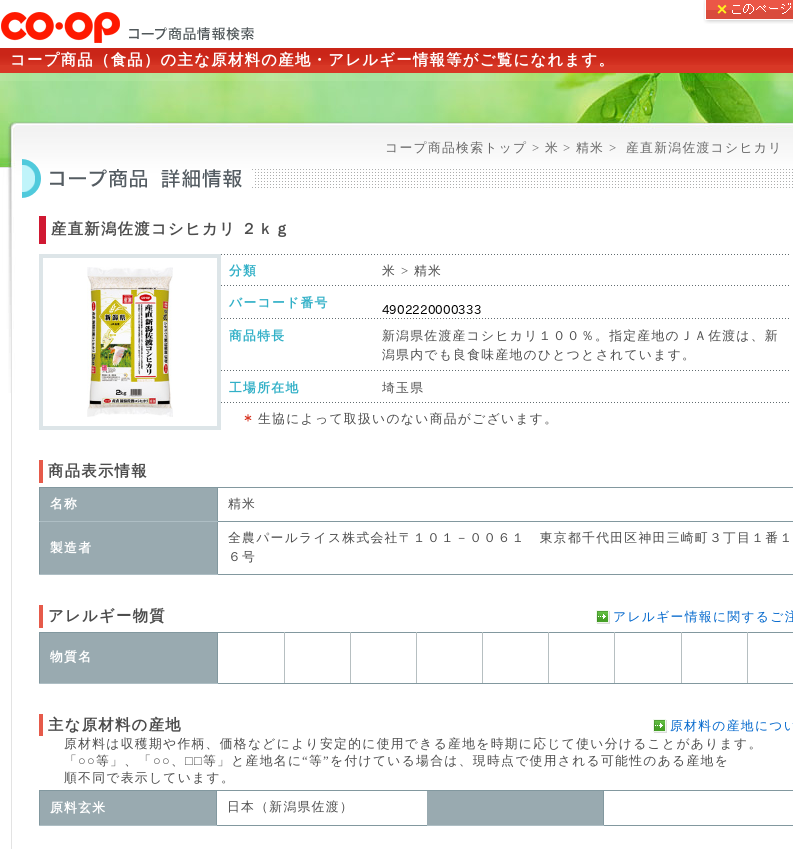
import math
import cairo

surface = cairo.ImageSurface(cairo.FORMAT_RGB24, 793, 849)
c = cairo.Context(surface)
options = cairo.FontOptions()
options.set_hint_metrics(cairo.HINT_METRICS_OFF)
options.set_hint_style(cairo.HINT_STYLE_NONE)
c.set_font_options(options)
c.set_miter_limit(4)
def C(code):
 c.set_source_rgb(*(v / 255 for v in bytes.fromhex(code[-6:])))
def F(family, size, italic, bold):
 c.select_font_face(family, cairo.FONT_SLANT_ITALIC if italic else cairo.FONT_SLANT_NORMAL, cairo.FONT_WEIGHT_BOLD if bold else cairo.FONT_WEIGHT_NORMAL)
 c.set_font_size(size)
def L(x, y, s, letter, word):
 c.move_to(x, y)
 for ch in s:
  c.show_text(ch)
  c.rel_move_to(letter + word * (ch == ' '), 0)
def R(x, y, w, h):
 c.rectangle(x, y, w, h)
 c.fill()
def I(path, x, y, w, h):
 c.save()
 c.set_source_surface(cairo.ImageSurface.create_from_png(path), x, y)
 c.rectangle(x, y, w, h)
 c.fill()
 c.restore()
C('ffffff')
c.paint()
I('1.png',1,12,253,31)
I('2.png',703,0,90,24)
C('d83826')
R(0,65,793,8)
I('3.png',0,48,793,17)
F('WenQuanYi Zen Hei',15.35,0,1)
C('ffffff')
L(10,65,'コープ商品（食品）の主な原材料の産地・アレルギー情報等がご覧になれます。',1.3,0)
C('e3e3e3')
R(11,393,1,456)
I('4.png',0,73,793,320)
F('WenQuanYi Zen Hei Medium',12.8,0,0)
C('666666')
L(385,152,'コープ商品検索トップ',1.3,0)
F('Liberation Serif',12.8,0,0)
L(532,152,'>',1.3,0)
F('WenQuanYi Zen Hei Medium',12.8,0,0)
L(545,152,'米',1.3,0)
F('Liberation Serif',12.8,0,0)
L(563,152,'>',1.3,0)
F('WenQuanYi Zen Hei Medium',12.8,0,0)
L(576,152,'精米',1.3,0)
F('Liberation Serif',12.8,0,0)
L(609,152,'>',1.3,0)
F('WenQuanYi Zen Hei Medium',12.8,0,0)
L(626,152,'産直新潟佐渡コシヒカリ',1.3,0)
I('5.png',22,159,771,39)
C('d01832')
R(39,216,7,28)
F('WenQuanYi Zen Hei',15.35,0,1)
C('4c4c4c')
L(51,234,'産直新潟佐渡コシヒカリ',1.3,0)
L(241,234,'２ｋｇ',1.3,0)
c.rectangle(41,256,178,172)
C('dde5e8')
c.set_line_width(4)
c.stroke()
I('6.png',87,267,86,150)
I('7.png',221,254,568,1)
I('8.png',221,285,151,1)
F('WenQuanYi Zen Hei',12.8,0,1)
C('32b0c7')
L(229,275,'分類',1.3,0)
I('9.png',374,285,415,1)
F('WenQuanYi Zen Hei Medium',12.8,0,0)
C('4c4c4c')
L(382,275,'米',1.3,0)
F('Liberation Serif',12.8,0,0)
L(401,275,'>',1.3,0)
F('WenQuanYi Zen Hei Medium',12.8,0,0)
L(414,275,'精米',1.3,0)
I('8.png',221,318,151,1)
F('WenQuanYi Zen Hei',12.8,0,1)
C('32b0c7')
L(229,307,'バーコード番号',1.3,0)
I('9.png',374,318,415,1)
I('10.png',382,305,99,9)
I('8.png',221,370,151,1)
L(229,340,'商品特長',1.3,0)
I('9.png',374,370,415,1)
F('WenQuanYi Zen Hei Medium',12.8,0,0)
C('4c4c4c')
L(382,340,'新潟県佐渡産コシヒカリ１００％。指定産地のＪＡ佐渡は、新',1.3,0)
L(382,359,'潟県内でも良食味産地のひとつとされています。',1.3,0)
I('8.png',221,402,151,1)
F('WenQuanYi Zen Hei',12.8,0,1)
C('32b0c7')
L(229,392,'工場所在地',1.3,0)
I('9.png',374,402,415,1)
F('WenQuanYi Zen Hei Medium',12.8,0,0)
C('4c4c4c')
L(382,392,'埼玉県',1.3,0)
I('11.png',244,414,8,8)
L(258,423,'生協によって取扱いのない商品がございます。',1.3,0)
C('e65a4a')
R(39,460,4,23)
F('WenQuanYi Zen Hei',15.35,0,1)
C('4c4c4c')
L(48,476,'商品表示情報',1.3,0)
C('82989f')
R(39,487,754,1)
R(218,574,575,1)
R(39,487,1,88)
C('99aab0')
R(40,488,177,33)
C('82989f')
R(217,521,1,54)
R(217,521,576,1)
R(217,487,1,35)
C('aebec4')
R(39,521,179,1)
F('WenQuanYi Zen Hei',12.8,0,1)
C('ffffff')
L(50,508,'名称',1.3,0)
F('WenQuanYi Zen Hei Medium',12.8,0,0)
C('4c4c4c')
L(228,508,'精米',1.3,0)
C('99aab0')
R(40,522,177,52)
C('aebec4')
R(39,574,179,1)
F('WenQuanYi Zen Hei',12.8,0,1)
C('ffffff')
L(50,552,'製造者',1.3,0)
F('WenQuanYi Zen Hei Medium',12.8,0,0)
C('4c4c4c')
L(228,542,'全農パールライス株式会社〒１０１－００６１　東京都千代田区神田三崎町３丁目１番１',1.3,0)
L(228,561,'６号',1.3,0)
C('e65a4a')
R(39,605,4,23)
F('WenQuanYi Zen Hei',15.35,0,1)
C('4c4c4c')
L(48,621,'アレルギー物質',1.3,0)
I('12.png',596,610,14,14)
F('WenQuanYi Zen Hei Medium',12.8,0,0)
C('0066cc')
L(613,621,'アレルギー情報に関するご注',1.3,0)
C('82989f')
R(39,632,754,1)
R(748,683,45,1)
R(39,632,1,52)
C('99aab0')
R(40,633,177,50)
C('b6bfc1')
R(747,632,1,52)
C('82989f')
R(681,683,67,1)
C('b6bfc1')
R(681,632,1,52)
C('82989f')
R(614,683,68,1)
C('b6bfc1')
R(614,632,1,52)
C('82989f')
R(548,683,67,1)
C('b6bfc1')
R(548,632,1,52)
C('82989f')
R(482,683,67,1)
C('b6bfc1')
R(482,632,1,52)
C('82989f')
R(416,683,67,1)
C('b6bfc1')
R(416,632,1,52)
C('82989f')
R(350,683,67,1)
C('b6bfc1')
R(350,632,1,52)
C('82989f')
R(284,683,67,1)
C('b6bfc1')
R(284,632,1,52)
C('82989f')
R(217,683,68,1)
R(217,632,1,52)
C('aebec4')
R(39,683,179,1)
F('WenQuanYi Zen Hei',12.8,0,1)
C('ffffff')
L(50,661,'物質名',1.3,0)
C('e65a4a')
R(39,714,4,22)
F('WenQuanYi Zen Hei',15.35,0,1)
C('4c4c4c')
L(48,730,'主な原材料の産地',1.3,0)
I('12.png',653,719,14,14)
F('WenQuanYi Zen Hei Medium',12.8,0,0)
C('0066cc')
L(670,730,'原材料の産地につい',1.3,0)
C('4c4c4c')
L(64,748,'原材料は収穫期や作柄、価格などにより安定的に使用できる産地を時期に応じて使い分けることがあります。',1.3,0)
L(64,765,'「',1.3,0)
F('Liberation Serif',12.8,0,0)
L(78,765,'○○',1.3,0)
F('WenQuanYi Zen Hei Medium',12.8,0,0)
L(96,765,'等」、「',1.3,0)
F('Liberation Serif',12.8,0,0)
L(153,765,'○○',1.3,0)
L(185,765,'□□',1.3,0)
F('WenQuanYi Zen Hei Medium',12.8,0,0)
L(203,765,'等」と産地名に',1.3,0)
F('Liberation Serif',12.8,0,0)
L(302,765,'“',1.3,0)
F('WenQuanYi Zen Hei Medium',12.8,0,0)
L(309,765,'等',1.3,0)
F('Liberation Serif',12.8,0,0)
L(323,765,'”',1.3,0)
F('WenQuanYi Zen Hei Medium',12.8,0,0)
L(330,765,'を付けている場合は、現時点で使用される可能性のある産地を',1.3,0)
L(171,765,'、',1.3,0)
L(64,782,'順不同で表示しています。',1.3,0)
C('82989f')
R(39,790,754,1)
R(604,825,189,1)
R(39,790,1,36)
C('99aab0')
R(40,791,176,34)
C('82989f')
R(603,790,1,36)
C('aebec4')
R(426,825,178,1)
C('82989f')
R(216,825,211,1)
R(216,790,1,36)
C('aebec4')
R(39,825,178,1)
F('WenQuanYi Zen Hei',12.8,0,1)
C('ffffff')
L(50,812,'原料玄米',1.3,0)
F('WenQuanYi Zen Hei Medium',12.8,0,0)
C('4c4c4c')
L(227,811,'日本（新潟県佐渡）',1.3,0)
C('99aab0')
R(427,791,176,34)
surface.write_to_png('o.png')
